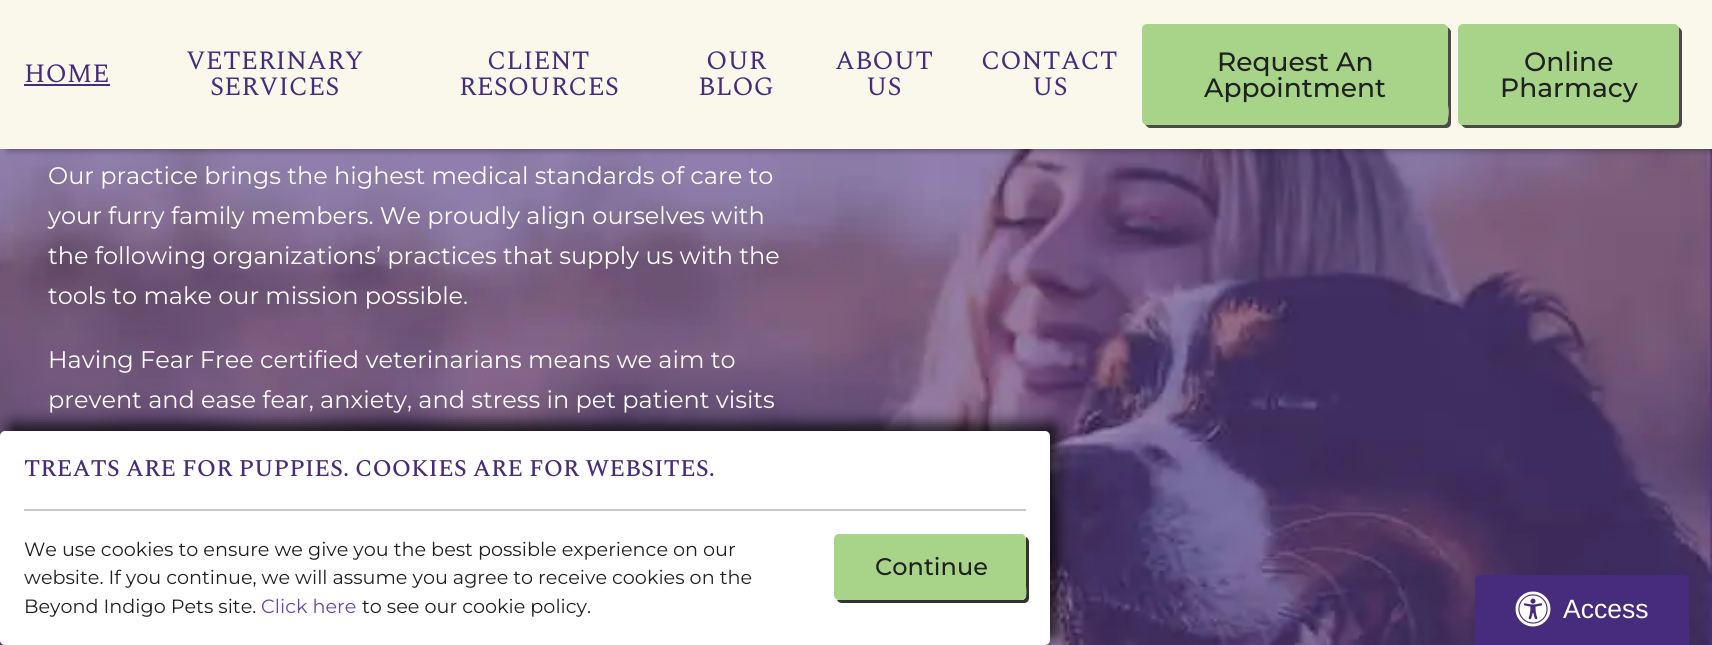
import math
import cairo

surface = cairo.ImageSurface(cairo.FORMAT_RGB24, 1712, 645)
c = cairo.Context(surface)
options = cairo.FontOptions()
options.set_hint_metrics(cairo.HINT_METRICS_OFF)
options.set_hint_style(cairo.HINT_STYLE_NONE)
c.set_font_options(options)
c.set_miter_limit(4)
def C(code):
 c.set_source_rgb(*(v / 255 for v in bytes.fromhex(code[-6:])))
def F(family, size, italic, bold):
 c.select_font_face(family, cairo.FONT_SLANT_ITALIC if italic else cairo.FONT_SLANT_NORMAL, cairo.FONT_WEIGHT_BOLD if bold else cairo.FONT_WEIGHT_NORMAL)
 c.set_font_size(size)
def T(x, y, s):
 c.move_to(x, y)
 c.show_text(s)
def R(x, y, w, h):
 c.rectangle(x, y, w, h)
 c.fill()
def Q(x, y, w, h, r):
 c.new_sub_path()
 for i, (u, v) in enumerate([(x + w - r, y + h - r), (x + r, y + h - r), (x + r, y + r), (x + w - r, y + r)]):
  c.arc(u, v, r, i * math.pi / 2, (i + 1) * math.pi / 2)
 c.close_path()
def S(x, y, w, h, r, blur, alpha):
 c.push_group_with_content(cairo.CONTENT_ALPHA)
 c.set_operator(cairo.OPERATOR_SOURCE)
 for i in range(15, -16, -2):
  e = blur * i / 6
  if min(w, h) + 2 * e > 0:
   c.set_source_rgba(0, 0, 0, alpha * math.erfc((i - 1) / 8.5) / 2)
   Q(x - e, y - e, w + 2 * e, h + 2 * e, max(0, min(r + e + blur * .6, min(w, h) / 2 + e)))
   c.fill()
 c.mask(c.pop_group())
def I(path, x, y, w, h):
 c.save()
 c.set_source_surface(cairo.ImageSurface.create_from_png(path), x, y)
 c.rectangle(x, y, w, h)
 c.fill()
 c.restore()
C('ffffff')
c.paint()
I('1.png',0,149,1712,496)
C('000000')
S(8,0,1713,149,0,4,.5)
C('faf8eb')
R(0,0,1712,149)
F('Spectral',26.5,0,0)
C('472b7c')
T(24,82,'HOME')
R(24,84,86,2)
T(186,69,'VETERINARY')
T(210,95,'SERVICES')
T(487,69,'CLIENT')
T(459,95,'RESOURCES')
T(706,69,'OUR')
T(698,95,'BLOG')
T(835,69,'ABOUT')
T(866,95,'US')
T(981,69,'CONTACT')
T(1032,95,'US')
C('4b4a47')
c.new_path()
c.move_to(1145,124)
c.curve_to(1146,126,1148,128,1150,128)
c.line_to(1446,128)
c.curve_to(1449,128,1451,126,1451,123)
c.line_to(1451,32)
c.curve_to(1451,30,1449,28,1447,27)
c.line_to(1448,105)
c.curve_to(1448,105,1451,124,1443,124)
c.close_path()
c.fill()
C('a7d489')
Q(1142,24,306,101,5)
c.fill()
F('Montserrat Medium',26.5,0,0)
C('212121')
T(1217,71,'Request An')
T(1204,97,'Appointment')
C('4b4a47')
c.new_path()
c.move_to(1461,124)
c.curve_to(1462,126,1464,128,1466,128)
c.line_to(1677,128)
c.curve_to(1680,128,1682,126,1682,123)
c.line_to(1682,32)
c.curve_to(1682,30,1680,28,1678,27)
c.line_to(1678,105)
c.curve_to(1678,105,1682,124,1674,124)
c.close_path()
c.fill()
C('a7d489')
Q(1458,24,221,101,5)
c.fill()
C('212121')
T(1524,71,'Online')
T(1500,97,'Pharmacy')
F('Montserrat',24,0,0)
C('ffffff')
T(48,184,'Our practice brings the highest medical standards of care to')
T(48,224,'your furry family members. We proudly align ourselves with')
T(48,264,'the following organizations’ practices that supply us with the')
T(48,304,'tools to make our mission possible.')
T(48,368,'Having Fear Free certified veterinarians means we aim to')
T(48,408,'prevent and ease fear, anxiety, and stress in pet patient visits')
C('000000')
S(8,423,1050,215,5,7.5,.75)
C('ffffff')
Q(0,431,1050,214,5)
c.fill()
F('Spectral Medium',24,0,0)
C('472b7c')
T(24,476,'TREATS ARE FOR PUPPIES. COOKIES ARE FOR WEBSITES.')
C('c8c8c8')
R(24,509,1002,2)
F('Montserrat',19.2,0,0)
C('212121')
T(24,556,'We use cookies to ensure we give you the best possible experience on our')
T(24,584,'website. If you continue, we will assume you agree to receive cookies on the')
T(24,613,'Beyond Indigo Pets site.')
C('6a44b1')
T(261,613,'Click here')
C('212121')
T(362,613,'to see our cookie policy.')
C('333333')
c.new_path()
c.move_to(837,600)
c.curve_to(838,602,840,603,842,603)
c.line_to(1024,603)
c.curve_to(1027,603,1029,601,1029,598)
c.line_to(1029,542)
c.curve_to(1029,540,1028,538,1026,537)
c.line_to(1026,586)
c.curve_to(1026,589,1028,600,1022,600)
c.close_path()
c.fill()
C('a7d489')
Q(834,534,192,66,5)
c.fill()
F('Montserrat Medium',24,0,0)
C('212121')
T(875,575,'Continue')
C('472b7c')
c.new_path()
c.move_to(1480,575)
c.line_to(1684,575)
c.curve_to(1687,575,1689,577,1689,580)
c.line_to(1689,645)
c.line_to(1475,645)
c.line_to(1475,580)
c.curve_to(1475,577,1477,575,1480,575)
c.close_path()
c.fill()
I('2.png',1515,591,36,36)
F('Liberation Sans',26.5,0,0)
C('ffffff')
T(1563,618,'Access')
surface.write_to_png('o.png')
